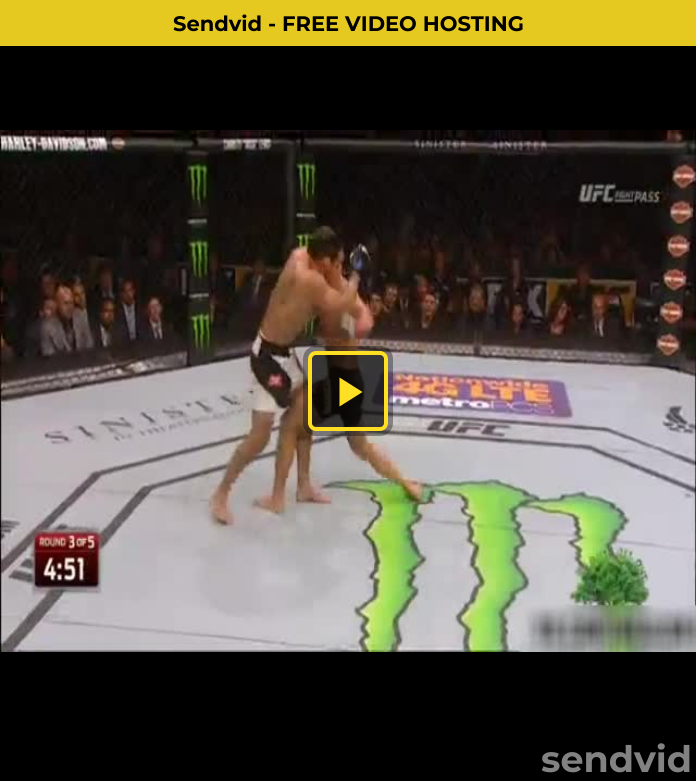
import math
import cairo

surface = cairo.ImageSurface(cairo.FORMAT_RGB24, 696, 781)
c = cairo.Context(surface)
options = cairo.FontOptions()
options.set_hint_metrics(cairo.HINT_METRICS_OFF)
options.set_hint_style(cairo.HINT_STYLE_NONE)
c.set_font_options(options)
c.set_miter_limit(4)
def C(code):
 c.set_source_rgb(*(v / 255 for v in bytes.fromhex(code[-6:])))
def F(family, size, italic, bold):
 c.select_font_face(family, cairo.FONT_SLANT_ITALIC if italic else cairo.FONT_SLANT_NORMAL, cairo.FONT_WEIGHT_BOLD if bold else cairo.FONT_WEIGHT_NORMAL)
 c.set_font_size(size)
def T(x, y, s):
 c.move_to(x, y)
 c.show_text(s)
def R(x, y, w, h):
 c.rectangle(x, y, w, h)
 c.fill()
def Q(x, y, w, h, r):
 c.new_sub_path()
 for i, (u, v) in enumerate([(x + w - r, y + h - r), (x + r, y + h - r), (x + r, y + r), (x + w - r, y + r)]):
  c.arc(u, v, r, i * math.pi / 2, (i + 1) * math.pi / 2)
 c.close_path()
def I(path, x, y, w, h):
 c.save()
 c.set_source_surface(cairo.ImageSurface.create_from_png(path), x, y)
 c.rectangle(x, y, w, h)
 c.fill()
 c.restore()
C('000000')
c.paint()
C('e5c820')
R(0,0,696,46)
F('Montserrat',21,0,1)
C('000000')
T(173,31,'Sendvid - FREE VIDEO HOSTING')
I('1.png',0,130,696,522)
c.set_source_rgba(0,0,0,0.7)
Q(310,353,76,76,6)
c.fill_preserve()
C('ffdf24')
c.set_line_width(4)
c.stroke()
Q(305.5,348.5,85,85,10.5)
c.set_source_rgba(0,0,0,0.35)
c.set_line_width(5)
c.stroke()
C('ffdf24')
c.new_path()
c.move_to(339.5,377.5)
c.line_to(339.5,406.5)
c.line_to(362.5,392)
c.close_path()
c.fill()
F('Montserrat',36.5,0,1)
C('828282')
T(541,772,'sendvid')
surface.write_to_png('o.png')
